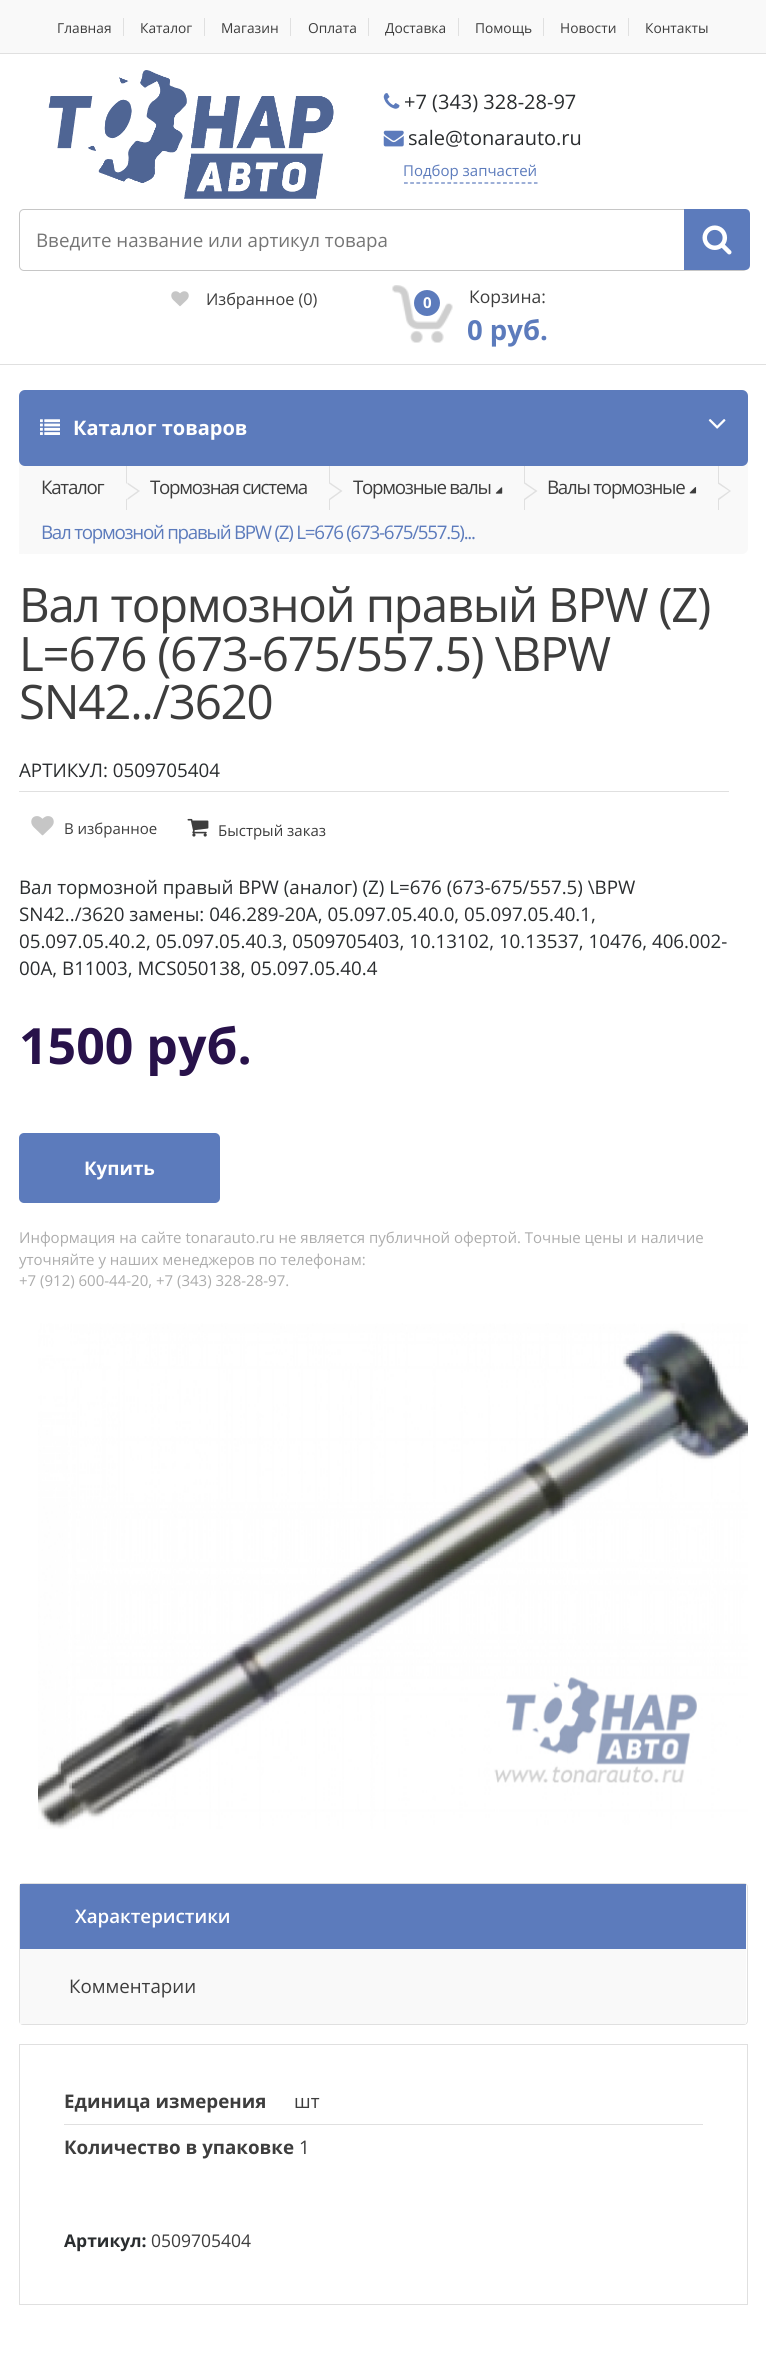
import math
import cairo

surface = cairo.ImageSurface(cairo.FORMAT_RGB24, 766, 2374)
c = cairo.Context(surface)
options = cairo.FontOptions()
options.set_hint_metrics(cairo.HINT_METRICS_OFF)
options.set_hint_style(cairo.HINT_STYLE_NONE)
c.set_font_options(options)
c.set_miter_limit(4)
def C(code):
 c.set_source_rgb(*(v / 255 for v in bytes.fromhex(code[-6:])))
def F(family, size, italic, bold):
 c.select_font_face(family, cairo.FONT_SLANT_ITALIC if italic else cairo.FONT_SLANT_NORMAL, cairo.FONT_WEIGHT_BOLD if bold else cairo.FONT_WEIGHT_NORMAL)
 c.set_font_size(size)
def T(x, y, s):
 c.move_to(x, y)
 c.show_text(s)
def L(x, y, s, letter, word):
 c.move_to(x, y)
 for ch in s:
  c.show_text(ch)
  c.rel_move_to(letter + word * (ch == ' '), 0)
def R(x, y, w, h):
 c.rectangle(x, y, w, h)
 c.fill()
def Q(x, y, w, h, r):
 c.new_sub_path()
 for i, (u, v) in enumerate([(x + w - r, y + h - r), (x + r, y + h - r), (x + r, y + r), (x + w - r, y + r)]):
  c.arc(u, v, r, i * math.pi / 2, (i + 1) * math.pi / 2)
 c.close_path()
def I(path, x, y, w, h):
 c.save()
 c.set_source_surface(cairo.ImageSurface.create_from_png(path), x, y)
 c.rectangle(x, y, w, h)
 c.fill()
 c.restore()
C('ffffff')
c.paint()
C('f9f9f9')
R(0,0,766,53)
C('e0e0e0')
R(0,53,766,1)
R(123,18,1,18)
F('Open Sans',13.75,0,0)
C('3d3d3d')
T(57,33,'Главная')
C('e0e0e0')
R(204,18,1,18)
C('3d3d3d')
T(140,33,'Каталог')
C('e0e0e0')
R(290,18,1,18)
C('3d3d3d')
T(221,33,'Магазин')
C('e0e0e0')
R(368,18,1,18)
C('3d3d3d')
T(308,33,'Оплата')
C('e0e0e0')
R(458,18,1,18)
C('3d3d3d')
T(385,33,'Доставка')
C('e0e0e0')
R(543,18,1,18)
C('3d3d3d')
T(475,33,'Помощь')
C('e0e0e0')
R(628,18,1,18)
C('3d3d3d')
T(560,33,'Новости')
T(645,33,'Контакты')
C('e0e0e0')
R(0,364,766,1)
I('1.png',48,70,286,129)
I('2.png',383,93,17,16)
F('Open Sans',20,0,0)
C('2a2d2f')
T(404,109,'+7 (343) 328-28-97')
I('3.png',383,130,21,17)
T(408,145,'sale@tonarauto.ru')
c.new_path()
c.move_to(404,183)
c.line_to(537.5,183)
C('5c7bbc')
c.set_line_width(1.2)
c.set_dash([3.75,2.44])
c.stroke()
F('Open Sans',15,0,0)
T(403,176,'Подбор запчастей')
Q(19.5,209.5,728,61,4.5)
C('c6c6c6')
c.set_line_width(1)
c.set_dash([])
c.stroke()
c.save()
c.rectangle(36,226,585,25)
c.clip()
F('Open Sans',18.75,0,0)
C('757575')
T(36,247,'Введите название или артикул товара')
c.restore()
C('5c7bbc')
c.new_path()
c.move_to(684,209)
c.line_to(745,209)
c.curve_to(748,209,750,211,750,214)
c.line_to(750,265)
c.curve_to(750,268,748,270,745,270)
c.line_to(684,270)
c.close_path()
c.fill()
I('4.png',702,225,30,30)
I('5.png',171,291,18,16)
F('Open Sans',16.25,0,0)
C('3d3d3d')
T(206,305,'Избранное (0)')
I('6.png',392,285,61,58)
C('5c7bbc')
c.arc(427,303,13,0,2 * math.pi)
c.fill()
F('Open Sans',15,0,1)
C('ffffff')
T(423,308,'0')
F('Open Sans',17.5,0,0)
C('3d3d3d')
T(469,303,'Корзина:')
F('Open Sans',27.5,0,1)
C('5c7bbc')
T(467,340,'0 руб.')
C('f9f9f9')
Q(19,390,729,164,6)
c.fill()
C('5c7bbc')
Q(19,390,729,76,6)
c.fill()
I('7.png',40,419,20,16)
F('Open Sans',20,0,1)
C('ffffff')
T(73,435,'Каталог товаров')
I('8.png',708,419,18,10)
C('e0e0e0')
R(126,466,1,44)
F('Open Sans',18.75,0,0)
C('3d3d3d')
L(41,494,'Каталог',-1.25,0)
C('e0e0e0')
c.new_path()
c.move_to(127.5,500)
c.line_to(127.5,482.5)
c.line_to(140,491)
c.close_path()
c.fill()
C('f9f9f9')
c.new_path()
c.move_to(125,500)
c.line_to(125,482.5)
c.line_to(137.5,491)
c.close_path()
c.fill()
C('e0e0e0')
R(329,466,1,44)
C('3d3d3d')
L(150,494,'Тормозная система',-1.25,0)
C('e0e0e0')
c.new_path()
c.move_to(330,500)
c.line_to(330,482.5)
c.line_to(342.5,491)
c.close_path()
c.fill()
C('f9f9f9')
c.new_path()
c.move_to(327.5,500)
c.line_to(327.5,482.5)
c.line_to(340,491)
c.close_path()
c.fill()
C('e0e0e0')
R(524,466,1,44)
C('3d3d3d')
L(353,494,'Тормозные валы',-1.25,0)
I('9.png',495,487,8,7)
C('e0e0e0')
c.new_path()
c.move_to(525,500)
c.line_to(525,482.5)
c.line_to(537.5,491)
c.close_path()
c.fill()
C('f9f9f9')
c.new_path()
c.move_to(522.5,500)
c.line_to(522.5,482.5)
c.line_to(535,491)
c.close_path()
c.fill()
C('e0e0e0')
R(718,466,1,44)
C('3d3d3d')
L(547,494,'Валы тормозные',-1.25,0)
I('10.png',689,487,8,7)
C('e0e0e0')
c.new_path()
c.move_to(719,500)
c.line_to(719,482.5)
c.line_to(731,491)
c.close_path()
c.fill()
C('f9f9f9')
c.new_path()
c.move_to(716,500)
c.line_to(716,482.5)
c.line_to(729,491)
c.close_path()
c.fill()
R(19,550,4,4)
C('5c7bbc')
L(41,539,'Вал тормозной правый BPW (Z) L=676 (673-675/557.5)...',-1.25,0)
F('Open Sans',47.5,0,0)
C('3d3d3d')
L(19,622,'Вал тормозной правый BPW (Z)',-1.25,0)
L(19,671,'L=676 (673-675/557.5) \\BPW',-1.25,0)
L(19,719,'SN42../3620',-1.25,0)
C('e0e0e0')
R(19,791,710,1)
F('Open Sans',18.75,0,0)
C('2a2d2f')
T(19,777,'АРТИКУЛ: 0509705404')
I('11.png',31,816,23,20)
F('Open Sans',15,0,0)
C('3d3d3d')
T(64,834,'В избранное')
I('12.png',187,818,22,19)
T(218,836,'Быстрый заказ')
F('Open Sans',18.75,0,0)
C('2a2d2f')
T(19,894,'Вал тормозной правый BPW (аналог) (Z) L=676 (673-675/557.5) \\BPW')
T(19,921,'SN42../3620 замены: 046.289-20A, 05.097.05.40.0, 05.097.05.40.1,')
T(19,948,'05.097.05.40.2, 05.097.05.40.3, 0509705403, 10.13102, 10.13537, 10476, 406.002-')
T(19,975,'00A, B11003, MCS050138, 05.097.05.40.4')
F('Open Sans',50,0,1)
C('28124a')
T(19,1064,'1500 руб.')
C('5c7bbc')
Q(19,1133,201,70,5)
c.fill()
F('Open Sans',18.75,0,1)
C('ffffff')
T(84,1175,'Купить')
F('Open Sans',15,0,0)
C('acacac')
T(19,1243,'Информация на сайте tonarauto.ru не является публичной офертой. Точные цены и наличие')
T(19,1265,'уточняйте у наших менеджеров по телефонам:')
T(19,1286,'+7 (912) 600-44-20, +7 (343) 328-28-97.')
I('13.png',38,1323,710,506)
Q(19.5,1883.5,728,141,3.5)
C('e0e0e0')
c.stroke()
C('5c7bbc')
R(20,1884,726,65)
F('Open Sans SemiBold',18.75,0,0)
C('ffffff')
T(75,1923,'Характеристики')
C('f9f9f9')
R(20,1949,726,75)
F('Open Sans',18.75,0,0)
C('3d3d3d')
T(69,1993,'Комментарии')
c.rectangle(19.5,2044.5,728,260)
C('e0e0e0')
c.stroke()
R(64,2124,639,1)
F('Open Sans',18.75,0,1)
C('3d3d3d')
T(64,2108,'Единица измерения')
F('Open Sans',18.75,0,0)
T(294,2108,'шт')
F('Open Sans',18.75,0,1)
T(64,2154,'Количество в упаковке')
F('Open Sans',18.75,0,0)
T(299,2154,'1')
F('Open Sans',17.5,0,1)
C('2a2d2f')
T(64,2247,'Артикул:')
F('Open Sans',17.5,0,0)
C('3d3d3d')
T(151,2247,'0509705404')
surface.write_to_png('o.png')
